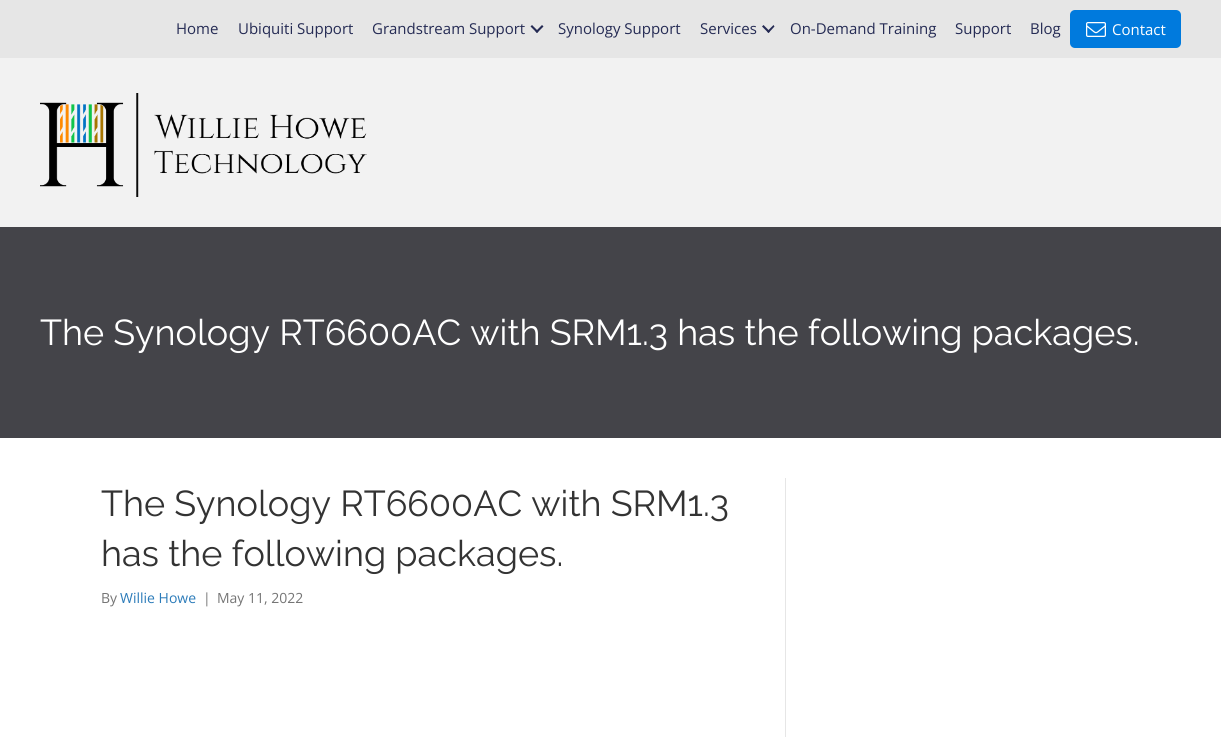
import math
import cairo

surface = cairo.ImageSurface(cairo.FORMAT_RGB24, 1221, 737)
c = cairo.Context(surface)
options = cairo.FontOptions()
options.set_hint_metrics(cairo.HINT_METRICS_OFF)
options.set_hint_style(cairo.HINT_STYLE_NONE)
c.set_font_options(options)
c.set_miter_limit(4)
def C(code):
 c.set_source_rgb(*(v / 255 for v in bytes.fromhex(code[-6:])))
def F(family, size, italic, bold):
 c.select_font_face(family, cairo.FONT_SLANT_ITALIC if italic else cairo.FONT_SLANT_NORMAL, cairo.FONT_WEIGHT_BOLD if bold else cairo.FONT_WEIGHT_NORMAL)
 c.set_font_size(size)
def T(x, y, s):
 c.move_to(x, y)
 c.show_text(s)
def R(x, y, w, h):
 c.rectangle(x, y, w, h)
 c.fill()
def Q(x, y, w, h, r):
 c.new_sub_path()
 for i, (u, v) in enumerate([(x + w - r, y + h - r), (x + r, y + h - r), (x + r, y + r), (x + w - r, y + r)]):
  c.arc(u, v, r, i * math.pi / 2, (i + 1) * math.pi / 2)
 c.close_path()
def I(path, x, y, w, h):
 c.save()
 c.set_source_surface(cairo.ImageSurface.create_from_png(path), x, y)
 c.rectangle(x, y, w, h)
 c.fill()
 c.restore()
C('f2f2f2')
c.paint()
C('e6e6e6')
R(0,0,1221,58)
F('Open Sans',15,0,0)
C('252b54')
T(176,34,'Home')
T(238,34,'Ubiquiti Support')
T(372,34,'Grandstream Support')
c.new_path()
c.move_to(542,25)
c.line_to(543.5,26.5)
c.line_to(537,33)
c.line_to(535.5,31.5)
c.close_path()
c.fill()
c.new_path()
c.move_to(532,25)
c.line_to(538.5,31.5)
c.line_to(537,33)
c.line_to(530.5,26.5)
c.close_path()
c.fill()
T(558,34,'Synology Support')
T(700,34,'Services')
c.new_path()
c.move_to(773.5,25)
c.line_to(774.5,26.5)
c.line_to(768.5,33)
c.line_to(767,31.5)
c.close_path()
c.fill()
c.new_path()
c.move_to(763.5,25)
c.line_to(770,31.5)
c.line_to(768.5,33)
c.line_to(762,26.5)
c.close_path()
c.fill()
T(790,34,'On-Demand Training')
T(955,34,'Support')
T(1030,34,'Blog')
C('007add')
Q(1070,10,111,38,5)
c.fill()
I('1.png',1086,22,20,15)
C('ffffff')
T(1112,35,'Contact')
I('2.png',40,93,327,104)
C('444449')
R(0,227,1221,211)
F('Raleway Thin',36,0,0)
C('ffffff')
T(40,345,'The Synology RT6600AC with SRM1.3 has the following packages.')
R(0,438,1221,299)
C('e6e6e6')
R(785,478,1,259)
C('333333')
T(101,516,'The Synology RT6600AC with SRM1.3')
T(101,566,'has the following packages.')
F('Open Sans',14,0,0)
C('757575')
T(101,603,'By')
C('2b7bb9')
T(120,603,'Willie Howe')
C('757575')
T(203,603,'|')
T(217,603,'May 11, 2022')
surface.write_to_png('o.png')
